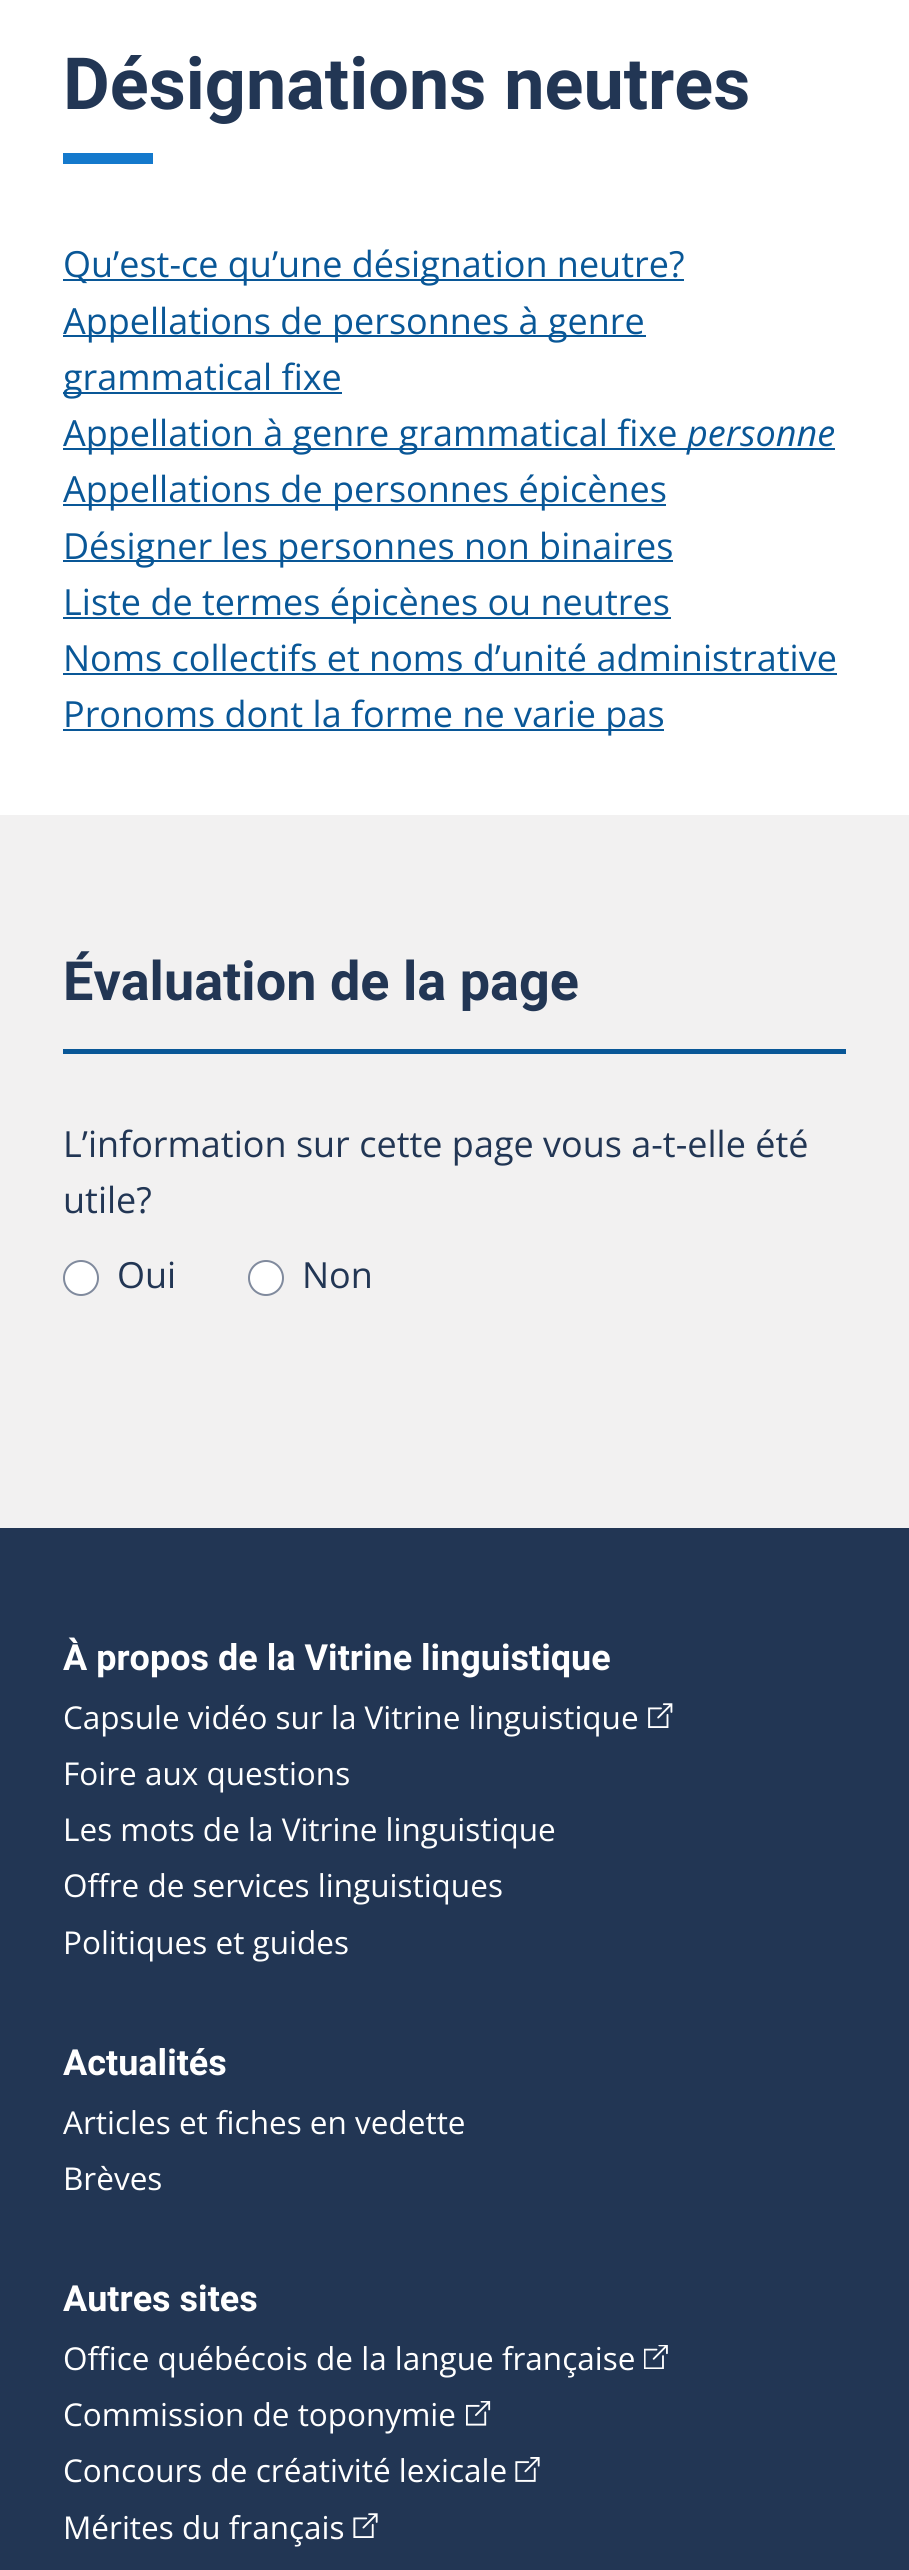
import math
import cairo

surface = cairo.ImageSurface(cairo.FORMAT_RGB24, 909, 2570)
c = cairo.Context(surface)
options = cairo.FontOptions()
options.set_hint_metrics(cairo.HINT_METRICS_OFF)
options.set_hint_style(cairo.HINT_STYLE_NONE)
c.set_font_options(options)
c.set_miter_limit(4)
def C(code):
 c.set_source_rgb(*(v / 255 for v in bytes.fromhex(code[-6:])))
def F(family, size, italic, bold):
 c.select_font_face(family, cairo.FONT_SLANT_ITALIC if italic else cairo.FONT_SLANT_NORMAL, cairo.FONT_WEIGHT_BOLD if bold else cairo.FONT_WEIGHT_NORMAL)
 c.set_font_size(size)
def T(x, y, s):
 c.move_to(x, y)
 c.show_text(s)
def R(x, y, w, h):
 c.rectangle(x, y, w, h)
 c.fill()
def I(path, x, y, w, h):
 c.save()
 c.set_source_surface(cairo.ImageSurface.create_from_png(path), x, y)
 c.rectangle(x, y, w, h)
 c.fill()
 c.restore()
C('ffffff')
c.paint()
F('Roboto',72,0,1)
C('223654')
T(63,109,'Désignations neutres')
C('1479cc')
R(63,153,90,11)
C('095797')
R(63,279,621,2)
F('Open Sans',36,0,0)
T(63,277,'Qu’est-ce qu’une désignation neutre?')
R(63,335,583,2)
T(63,334,'Appellations de personnes à genre')
R(63,392,279,2)
T(63,390,'grammatical fixe')
R(63,448,772,2)
T(63,446,'Appellation à genre grammatical fixe')
F('Open Sans',36,1,0)
T(687,446,'personne')
R(63,504,603,2)
F('Open Sans',36,0,0)
T(63,502,'Appellations de personnes épicènes')
R(63,560,610,2)
T(63,559,'Désigner les personnes non binaires')
R(63,617,608,2)
T(63,615,'Liste de termes épicènes ou neutres')
T(63,671,'Noms collectifs et noms d’unité administrative')
R(63,673,774,2)
R(63,729,601,2)
T(63,727,'Pronoms dont la forme ne varie pas')
C('f2f1f1')
R(0,815,909,713)
C('095797')
R(63,1049,783,5)
F('Roboto',54,0,1)
C('223654')
T(63,1000,'Évaluation de la page')
F('Open Sans',36,0,0)
T(63,1157,'L’information sur cette page vous a-t-elle été')
T(63,1213,'utile?')
C('ffffff')
c.new_path()
c.arc(81,1278,17,0,2 * math.pi)
c.fill_preserve()
C('808a9d')
c.stroke()
C('223654')
T(117,1288,'Oui')
C('ffffff')
c.new_path()
c.arc(266,1278,17,0,2 * math.pi)
c.fill_preserve()
C('808a9d')
c.stroke()
C('223654')
T(302,1288,'Non')
R(0,1528,909,1042)
F('Roboto',36,0,1)
C('ffffff')
T(63,1670,'À propos de la Vitrine linguistique')
F('Open Sans',31.5,0,0)
T(63,1729,'Capsule vidéo sur la Vitrine linguistique')
I('1.png',648,1703,25,25)
T(63,1785,'Foire aux questions')
T(63,1841,'Les mots de la Vitrine linguistique')
T(63,1897,'Offre de services linguistiques')
T(63,1954,'Politiques et guides')
F('Roboto',36,0,1)
T(63,2075,'Actualités')
F('Open Sans',31.5,0,0)
T(63,2134,'Articles et fiches en vedette')
T(63,2190,'Brèves')
F('Roboto',36,0,1)
T(63,2311,'Autres sites')
F('Open Sans',31.5,0,0)
T(63,2370,'Office québécois de la langue française')
I('2.png',644,2345,24,24)
T(63,2426,'Commission de toponymie')
I('3.png',466,2401,25,25)
T(63,2482,'Concours de créativité lexicale')
I('4.png',515,2457,25,25)
T(63,2539,'Mérites du français')
I('5.png',353,2513,25,25)
surface.write_to_png('o.png')
